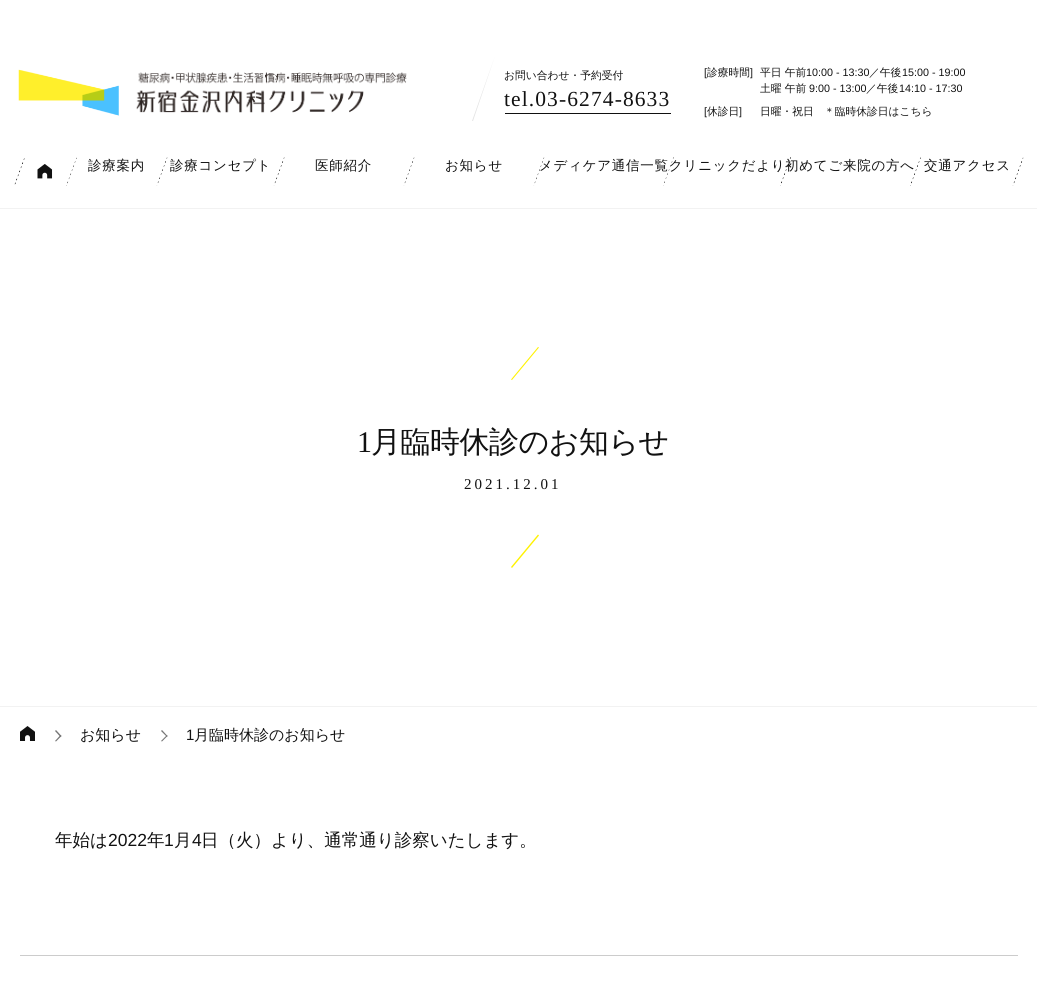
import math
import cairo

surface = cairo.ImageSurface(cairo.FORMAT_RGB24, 1037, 994)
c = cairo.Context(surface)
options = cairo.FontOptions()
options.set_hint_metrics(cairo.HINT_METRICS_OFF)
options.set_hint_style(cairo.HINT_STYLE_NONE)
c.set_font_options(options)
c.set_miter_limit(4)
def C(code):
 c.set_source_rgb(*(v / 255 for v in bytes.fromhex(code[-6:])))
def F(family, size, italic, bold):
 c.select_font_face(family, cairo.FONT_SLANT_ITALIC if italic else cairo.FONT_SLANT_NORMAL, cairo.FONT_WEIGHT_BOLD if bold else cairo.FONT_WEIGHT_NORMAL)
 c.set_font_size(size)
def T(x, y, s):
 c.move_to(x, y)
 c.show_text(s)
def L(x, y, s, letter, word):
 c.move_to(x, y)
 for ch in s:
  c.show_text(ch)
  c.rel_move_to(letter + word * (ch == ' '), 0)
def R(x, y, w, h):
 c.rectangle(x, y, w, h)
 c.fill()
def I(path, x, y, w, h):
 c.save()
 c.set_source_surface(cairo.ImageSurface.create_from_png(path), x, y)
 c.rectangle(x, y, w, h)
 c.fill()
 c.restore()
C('ffffff')
c.paint()
I('1.png',18,69,101,47)
I('2.png',136,72,271,41)
C('e4e4e4')
c.new_path()
c.move_to(495,121)
c.line_to(472,121)
c.line_to(495,56)
c.line_to(473,56)
c.line_to(495,56)
c.line_to(473,121)
c.close_path()
c.fill()
F('WenQuanYi Zen Hei Medium',10.75,0,0)
C('111111')
T(504,79,'お問い合わせ・予約受付')
F('Liberation Serif',21.5,0,0)
L(504,106,'tel.03-6274-8633',1.1,0)
R(505,113,166,1)
F('Liberation Sans',10.75,0,0)
T(704,76,'[')
F('WenQuanYi Zen Hei Medium',10.75,0,0)
T(707,76,'診療時間')
F('Liberation Sans',10.75,0,0)
T(750,76,']')
F('WenQuanYi Zen Hei Medium',10.75,0,0)
T(760,76,'平日 午前')
F('Liberation Sans',10.75,0,0)
T(806,76,'10:00 - 13:30')
F('WenQuanYi Zen Hei Medium',10.75,0,0)
T(869,76,'／午後')
F('Liberation Sans',10.75,0,0)
T(902,76,'15:00 - 19:00')
F('WenQuanYi Zen Hei Medium',10.75,0,0)
T(760,92,'土曜 午前')
F('Liberation Sans',10.75,0,0)
T(809,92,'9:00 - 13:00')
F('WenQuanYi Zen Hei Medium',10.75,0,0)
T(866,92,'／午後')
F('Liberation Sans',10.75,0,0)
T(899,92,'14:10 - 17:30')
T(704,115,'[')
F('WenQuanYi Zen Hei Medium',10.75,0,0)
T(707,115,'休診日')
F('Liberation Sans',10.75,0,0)
T(739,115,']')
F('WenQuanYi Zen Hei Medium',10.75,0,0)
T(760,115,'日曜・祝日')
T(824,115,'＊臨時休診日はこちら')
I('3.png',14,158,11,27)
I('4.png',37,164,16,15)
I('5.png',66,157,11,29)
F('WenQuanYi Zen Hei Medium',13.5,0,0)
L(88,170,'診療案内',.75,0)
I('6.png',156,157,12,29)
L(170,170,'診療コンセプト',.75,0)
I('7.png',273,157,12,29)
L(315,170,'医師紹介',.75,0)
I('8.png',403,157,12,29)
L(445,170,'お知らせ',.75,0)
L(539,170,'メディケア通信一覧',.75,0)
I('9.png',533,157,12,29)
L(669,170,'クリニックだより',.75,0)
I('10.png',663,157,11,29)
L(785,170,'初めてご来院の方へ',.75,0)
I('11.png',780,157,11,29)
I('12.png',910,157,11,29)
L(924,170,'交通アクセス',.75,0)
I('13.png',1012,157,12,29)
C('f2f2f2')
R(0,208,1037,1)
R(0,706,1037,1)
C('fff200')
c.new_path()
c.move_to(511,379.5)
c.line_to(538,347)
c.line_to(539,347.5)
c.line_to(512,380)
c.close_path()
c.fill()
F('Liberation Serif',30,0,0)
C('111111')
L(357,452,'1',-.5,0)
F('WenQuanYi Zen Hei Medium',30,0,0)
L(371,452,'月臨時休診のお知らせ',-.5,0)
F('Liberation Serif',15,0,0)
L(464,489,'2021.12.01',3,0)
C('fff200')
c.new_path()
c.move_to(511,567)
c.line_to(538,534.5)
c.line_to(539,535.5)
c.line_to(512,568)
c.close_path()
c.fill()
I('14.png',20,726,15,15)
C('767676')
c.new_path()
c.move_to(56,730)
c.line_to(61.5,736)
c.line_to(60.5,737)
c.line_to(55,731)
c.close_path()
c.fill()
c.new_path()
c.move_to(60.5,735)
c.line_to(61.5,736)
c.line_to(56,741.5)
c.line_to(55,741)
c.close_path()
c.fill()
F('WenQuanYi Zen Hei Medium',15,0,0)
C('111111')
T(80,740,'お知らせ')
C('767676')
c.new_path()
c.move_to(162,730)
c.line_to(167.5,736)
c.line_to(167,737)
c.line_to(161,731)
c.close_path()
c.fill()
c.new_path()
c.move_to(167,735)
c.line_to(167.5,736)
c.line_to(162,741.5)
c.line_to(161,741)
c.close_path()
c.fill()
F('Liberation Sans',15,0,0)
C('111111')
T(186,740,'1')
F('WenQuanYi Zen Hei Medium',15,0,0)
T(194,740,'月臨時休診のお知らせ')
F('WenQuanYi Zen Hei Medium',17.5,0,0)
T(55,846,'年始は')
F('Liberation Sans',17.5,0,0)
T(108,846,'2022')
F('WenQuanYi Zen Hei Medium',17.5,0,0)
T(147,846,'年')
F('Liberation Sans',17.5,0,0)
T(164,846,'1')
F('WenQuanYi Zen Hei Medium',17.5,0,0)
T(174,846,'月')
F('Liberation Sans',17.5,0,0)
T(192,846,'4')
F('WenQuanYi Zen Hei Medium',17.5,0,0)
T(201,846,'日（火）より、通常通り診察いたします。')
C('cccccc')
R(20,955,998,1)
surface.write_to_png('o.png')
